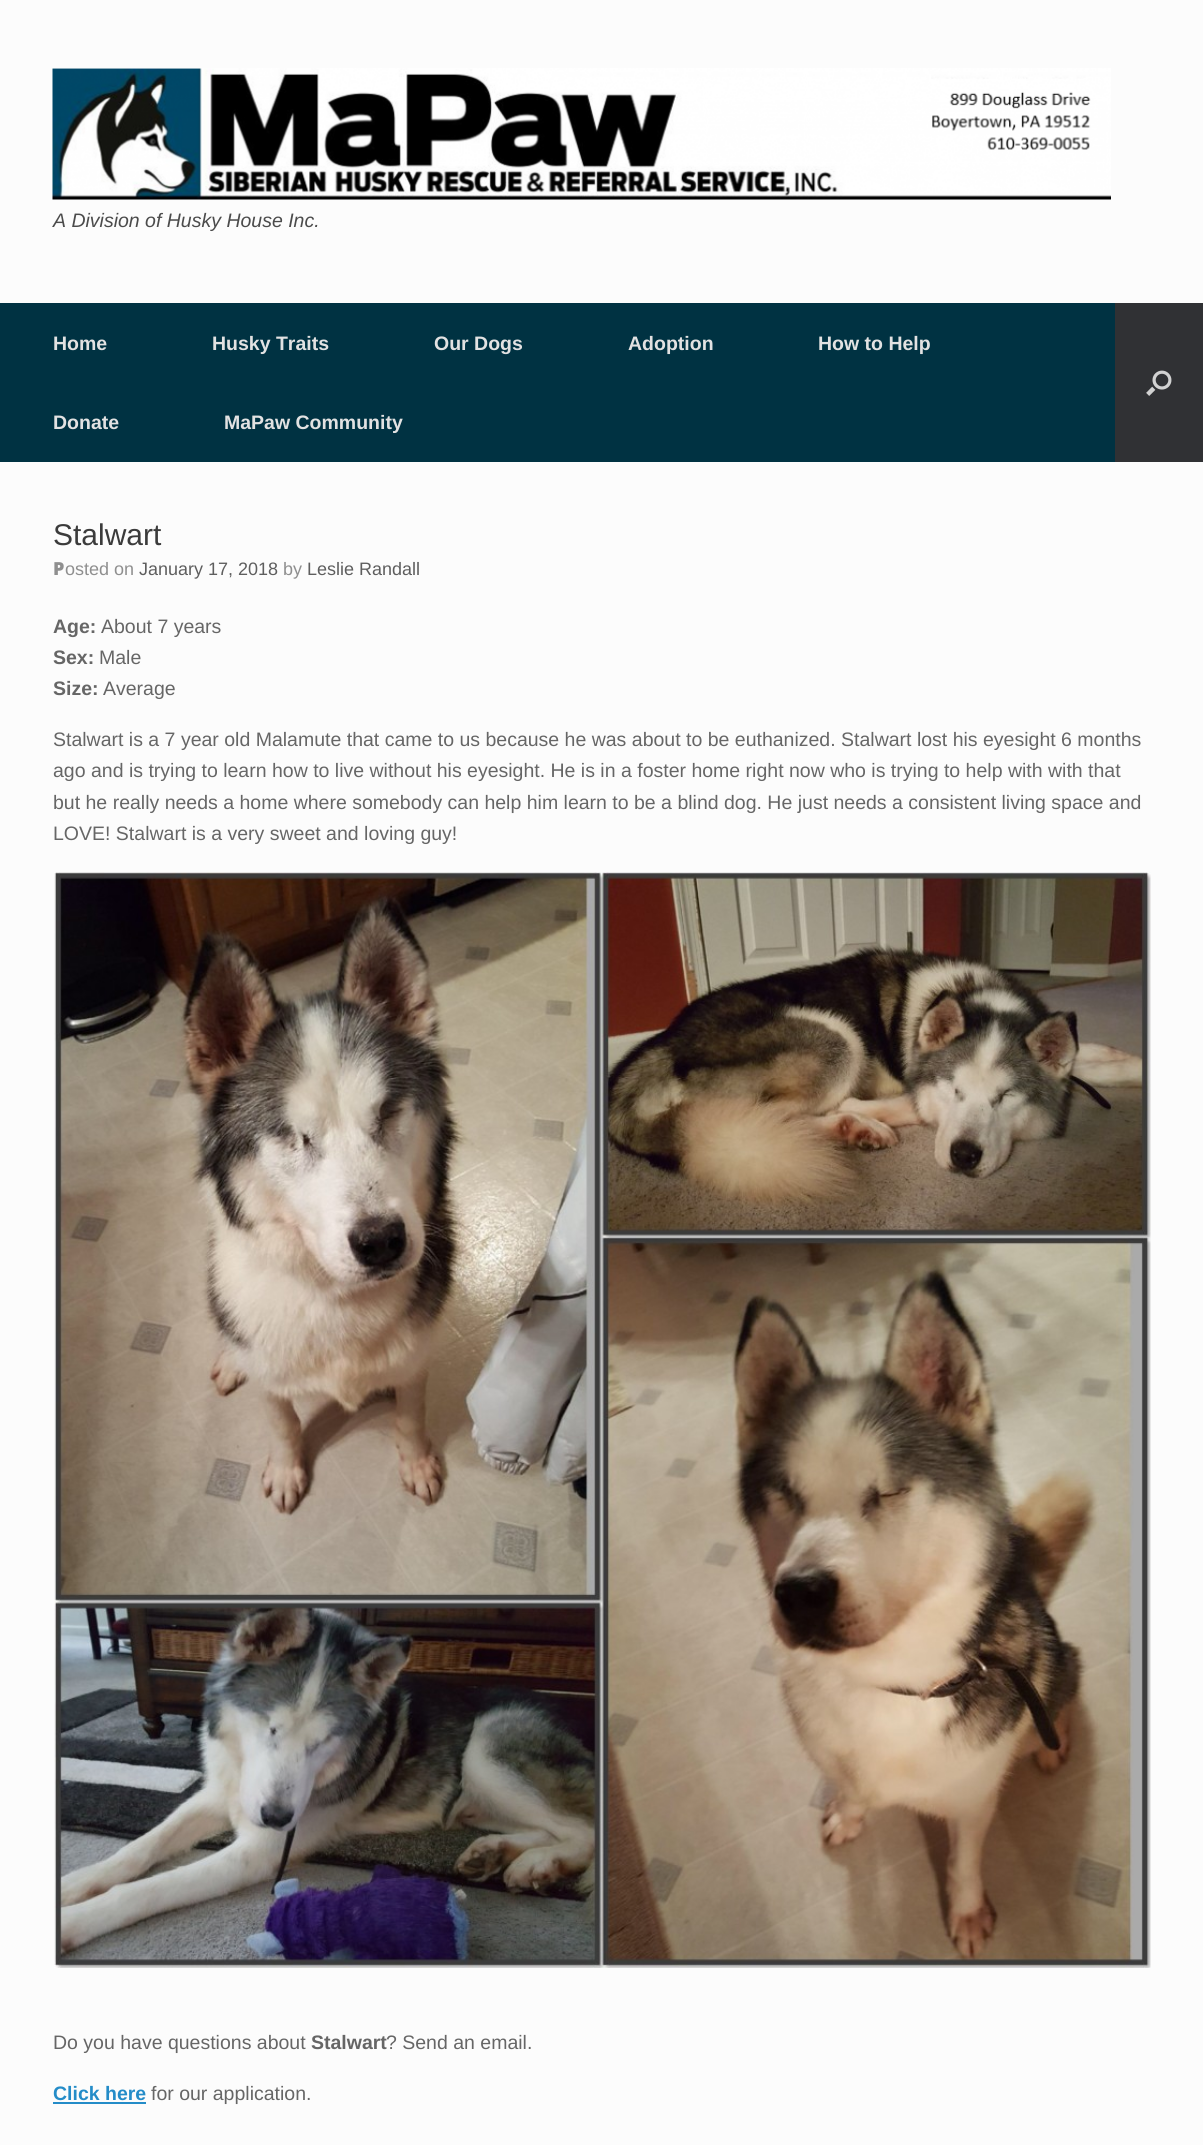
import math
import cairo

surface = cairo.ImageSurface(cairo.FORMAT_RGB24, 1203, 2145)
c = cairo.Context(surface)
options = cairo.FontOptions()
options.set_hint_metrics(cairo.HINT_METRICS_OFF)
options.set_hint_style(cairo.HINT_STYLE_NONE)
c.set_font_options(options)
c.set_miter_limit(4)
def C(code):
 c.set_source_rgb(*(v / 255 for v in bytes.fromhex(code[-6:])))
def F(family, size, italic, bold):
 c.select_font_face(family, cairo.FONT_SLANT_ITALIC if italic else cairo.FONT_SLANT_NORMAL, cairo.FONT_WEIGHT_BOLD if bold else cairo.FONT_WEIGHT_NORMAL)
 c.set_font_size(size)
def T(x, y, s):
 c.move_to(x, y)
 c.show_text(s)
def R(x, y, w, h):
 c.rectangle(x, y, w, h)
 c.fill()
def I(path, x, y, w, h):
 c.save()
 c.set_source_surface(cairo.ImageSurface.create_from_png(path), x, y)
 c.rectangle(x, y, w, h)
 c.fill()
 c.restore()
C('fcfcfc')
c.paint()
I('1.png',52,68,1059,132)
F('Liberation Sans',19.5,1,0)
C('4b4b4b')
T(53,227,'A Division of Husky House Inc.')
C('003242')
R(0,303,1115,159)
F('Liberation Sans',19.5,0,1)
C('e2e2e2')
T(53,350,'Home')
T(212,350,'Husky Traits')
T(434,350,'Our Dogs')
T(628,350,'Adoption')
T(818,350,'How to Help')
T(53,429,'Donate')
T(224,429,'MaPaw Community')
C('303134')
R(1115,303,88,159)
I('2.png',1146,370,26,26)
F('Liberation Sans',30,0,0)
C('3b3b3b')
T(53,545,'Stalwart')
F('Noto Sans Black',18,0,0)
C('8f8f8f')
T(53,575,'P')
F('Liberation Sans',18,0,0)
T(65,575,'osted on')
C('5e5e5e')
T(139,575,'January 17, 2018')
C('8f8f8f')
T(283,575,'by')
C('5e5e5e')
T(307,575,'Leslie Randall')
F('Liberation Sans',19.5,0,1)
C('666666')
T(53,633,'Age:')
F('Liberation Sans',19.5,0,0)
T(101,633,'About 7 years')
F('Liberation Sans',19.5,0,1)
T(53,664,'Sex:')
F('Liberation Sans',19.5,0,0)
T(99,664,'Male')
F('Liberation Sans',19.5,0,1)
T(53,695,'Size:')
F('Liberation Sans',19.5,0,0)
T(103,695,'Average')
T(53,746,'Stalwart is a 7 year old Malamute that came to us because he was about to be euthanized. Stalwart lost his eyesight 6 months')
T(53,777,'ago and is trying to learn how to live without his eyesight. He is in a foster home right now who is trying to help with with that')
T(53,809,'but he really needs a home where somebody can help him learn to be a blind dog. He just needs a consistent living space and')
T(53,840,'LOVE! Stalwart is a very sweet and loving guy!')
I('3.png',54,872,1097,1096)
T(53,2049,'Do you have questions about')
F('Liberation Sans',19.5,0,1)
T(311,2049,'Stalwart')
F('Liberation Sans',19.5,0,0)
T(386,2049,'? Send an email.')
F('Liberation Sans',19.5,0,1)
C('248cc8')
T(53,2100,'Click here')
R(53,2102,93,2)
F('Liberation Sans',19.5,0,0)
C('666666')
T(151,2100,'for our application.')
surface.write_to_png('o.png')
